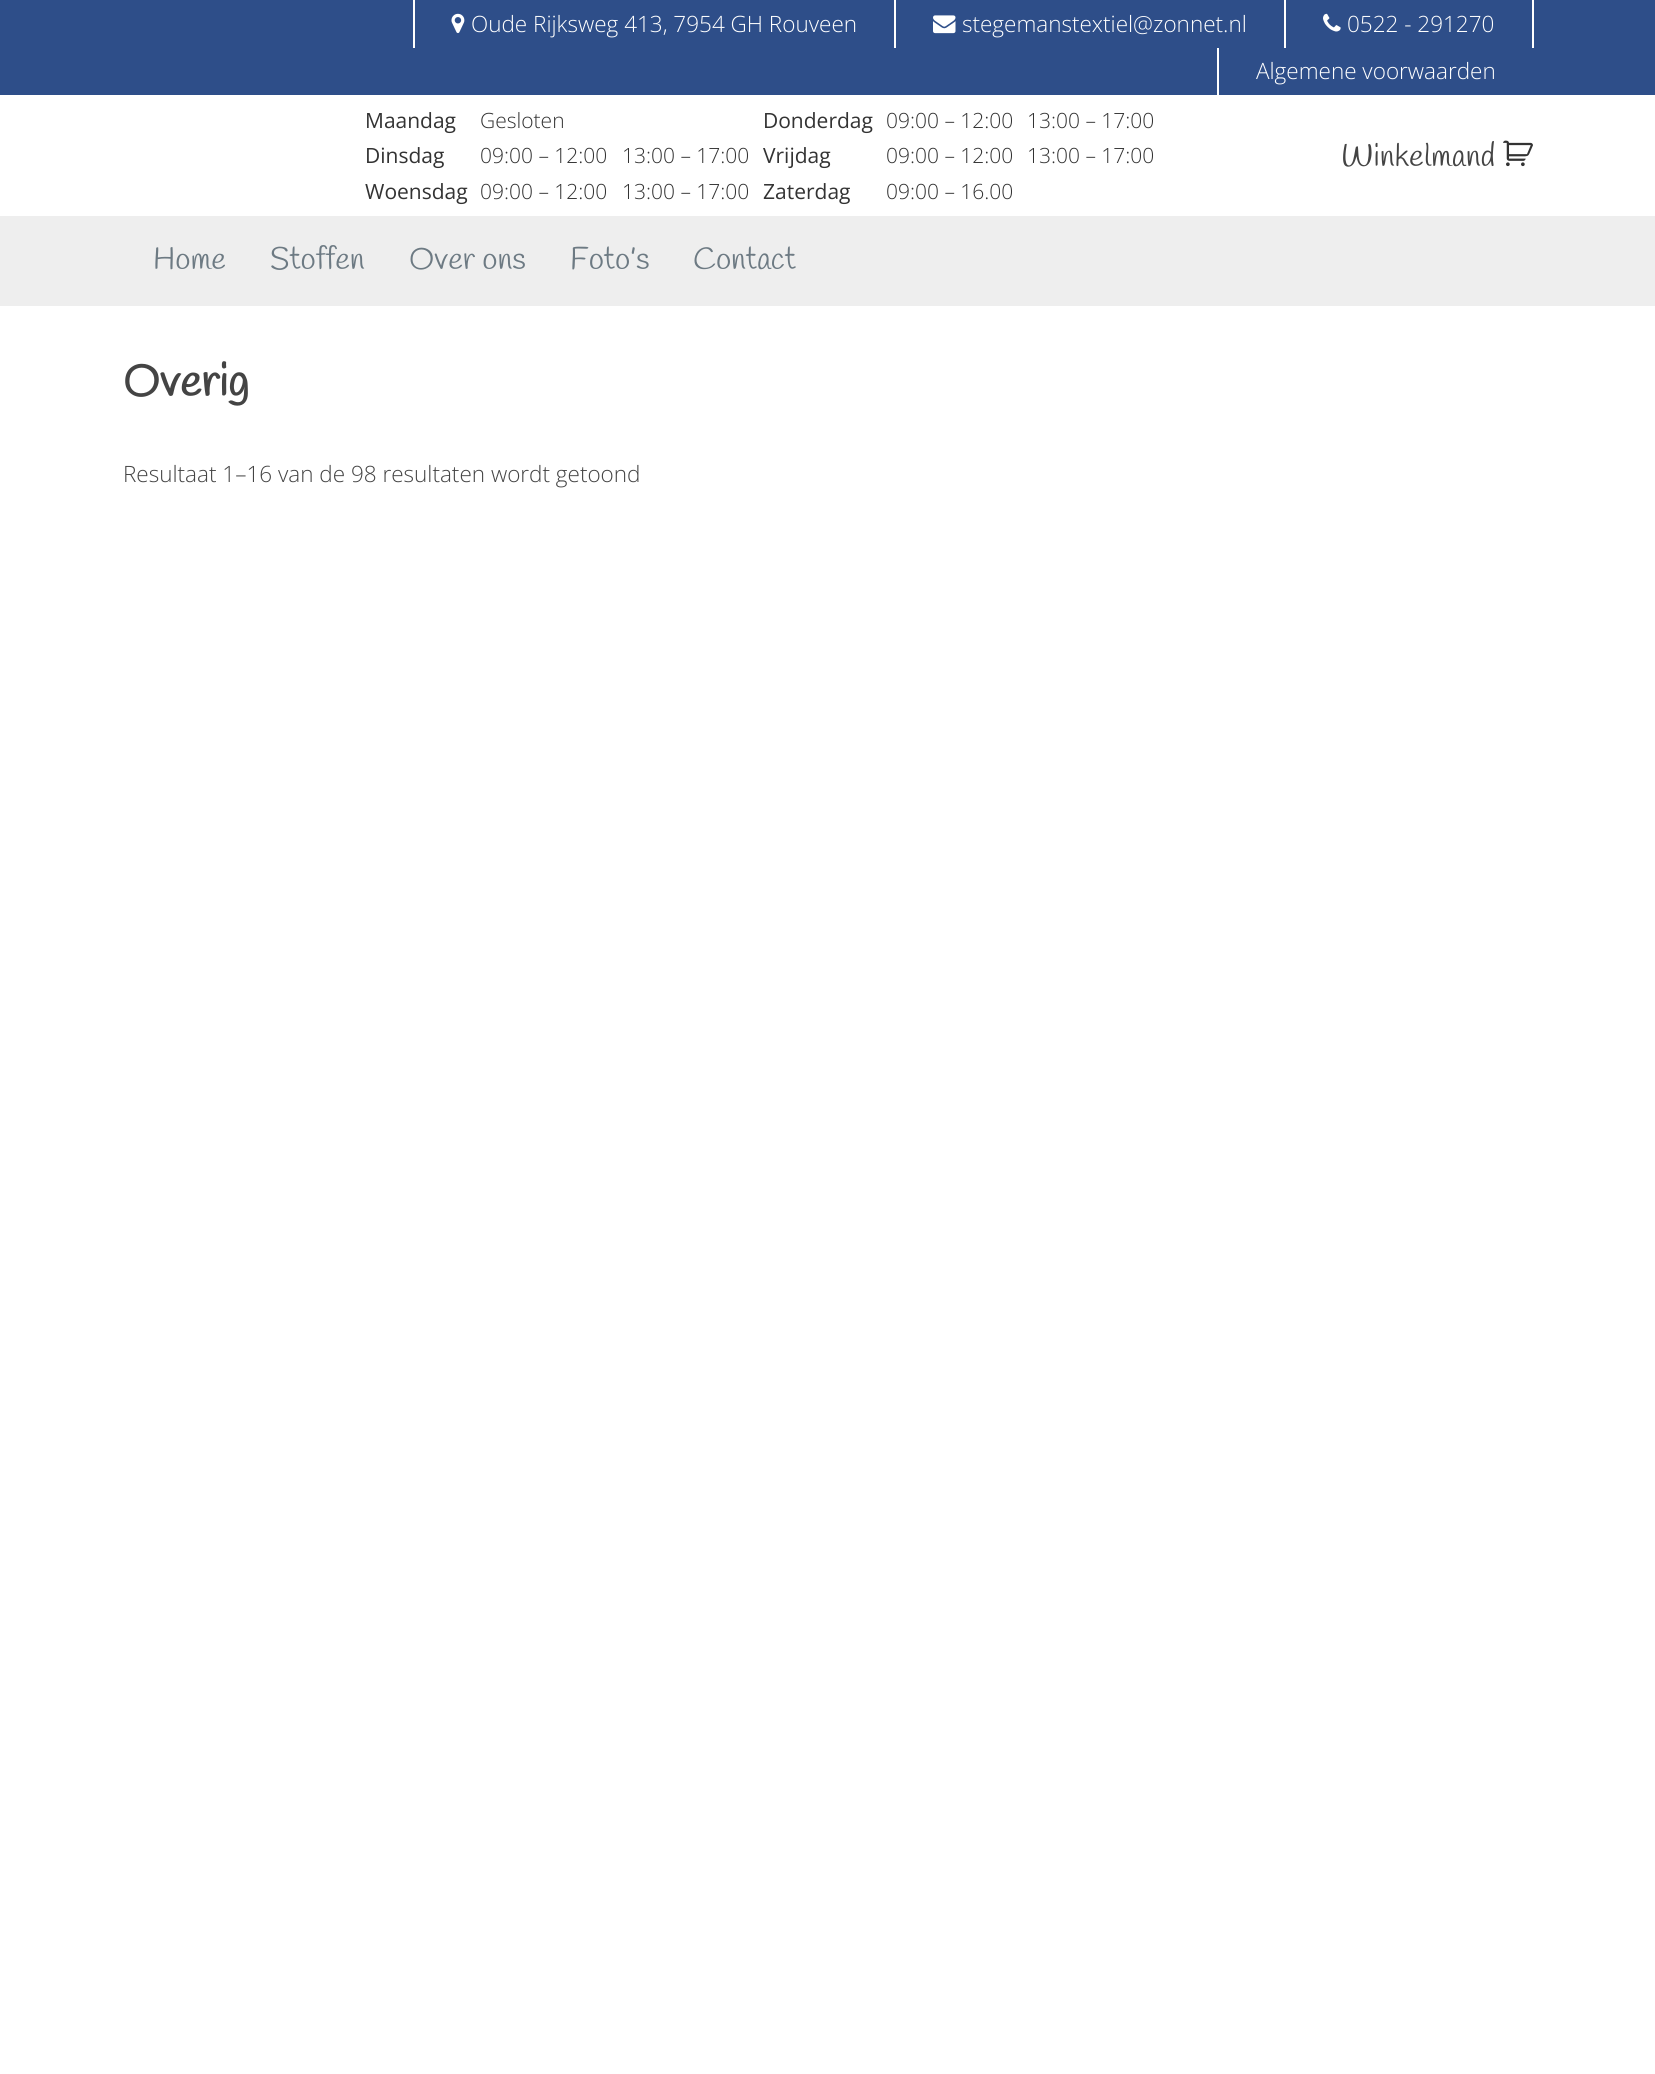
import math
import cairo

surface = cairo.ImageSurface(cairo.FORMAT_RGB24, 1655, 2074)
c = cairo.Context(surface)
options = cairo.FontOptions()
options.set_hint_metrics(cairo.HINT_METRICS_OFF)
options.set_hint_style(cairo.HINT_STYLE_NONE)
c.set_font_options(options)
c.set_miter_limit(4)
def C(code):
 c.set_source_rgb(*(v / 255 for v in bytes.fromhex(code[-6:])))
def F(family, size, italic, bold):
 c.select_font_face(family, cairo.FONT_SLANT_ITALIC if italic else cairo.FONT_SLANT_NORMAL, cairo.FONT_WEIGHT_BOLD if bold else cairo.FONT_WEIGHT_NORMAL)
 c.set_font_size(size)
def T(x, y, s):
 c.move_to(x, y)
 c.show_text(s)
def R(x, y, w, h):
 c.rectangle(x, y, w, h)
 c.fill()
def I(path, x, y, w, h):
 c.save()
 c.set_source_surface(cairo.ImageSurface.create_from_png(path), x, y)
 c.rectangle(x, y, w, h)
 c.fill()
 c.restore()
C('ffffff')
c.paint()
C('2e4e89')
R(0,0,1655,95)
C('ffffff')
R(413,0,2,48)
I('1.png',451,13,14,21)
F('Open Sans Light',22.5,0,0)
T(471,32,'Oude Rijksweg 413, 7954 GH Rouveen')
R(894,0,2,48)
I('2.png',933,15,23,19)
T(962,32,'stegemanstextiel@zonnet.nl')
R(1532,0,2,48)
R(1284,0,2,48)
I('3.png',1323,13,18,19)
T(1347,32,'0522 - 291270')
R(1217,48,2,47)
T(1256,79,'Algemene voorwaarden')
F('Open Sans',21,0,0)
C('333333')
T(365,128,'Maandag')
F('Open Sans Light',21,0,0)
T(480,128,'Gesloten')
F('Open Sans',21,0,0)
T(763,128,'Donderdag')
F('Open Sans Light',21,0,0)
T(886,128,'09:00 – 12:00')
T(1027,128,'13:00 – 17:00')
F('Open Sans',21,0,0)
T(365,163,'Dinsdag')
F('Open Sans Light',21,0,0)
T(480,163,'09:00 – 12:00')
T(622,163,'13:00 – 17:00')
F('Open Sans',21,0,0)
T(763,163,'Vrijdag')
F('Open Sans Light',21,0,0)
T(886,163,'09:00 – 12:00')
T(1027,163,'13:00 – 17:00')
F('Open Sans',21,0,0)
T(365,199,'Woensdag')
F('Open Sans Light',21,0,0)
T(480,199,'09:00 – 12:00')
T(622,199,'13:00 – 17:00')
F('Open Sans',21,0,0)
T(763,199,'Zaterdag')
F('Open Sans Light',21,0,0)
T(886,199,'09:00 – 16.00')
F('Handlee',31,0,0)
C('444444')
T(1341,166,'Winkelmand')
I('4.png',1503,140,30,27)
C('eeeeee')
R(0,216,1655,90)
C('6d7a83')
T(153,269,'Home')
T(270,269,'Stoffen')
T(409,269,'Over ons')
T(570,269,'Foto’s')
T(693,269,'Contact')
F('Handlee',45,0,1)
C('444444')
T(123,396,'Overig')
F('Open Sans Light',22.5,0,0)
T(123,482,'Resultaat 1–16 van de 98 resultaten wordt getoond')
surface.write_to_png('o.png')
